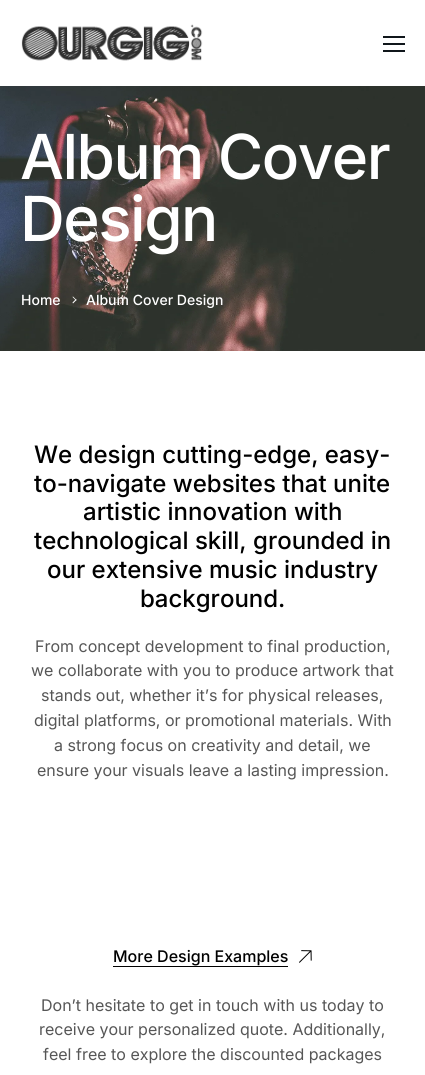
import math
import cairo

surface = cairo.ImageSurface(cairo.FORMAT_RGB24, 425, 1075)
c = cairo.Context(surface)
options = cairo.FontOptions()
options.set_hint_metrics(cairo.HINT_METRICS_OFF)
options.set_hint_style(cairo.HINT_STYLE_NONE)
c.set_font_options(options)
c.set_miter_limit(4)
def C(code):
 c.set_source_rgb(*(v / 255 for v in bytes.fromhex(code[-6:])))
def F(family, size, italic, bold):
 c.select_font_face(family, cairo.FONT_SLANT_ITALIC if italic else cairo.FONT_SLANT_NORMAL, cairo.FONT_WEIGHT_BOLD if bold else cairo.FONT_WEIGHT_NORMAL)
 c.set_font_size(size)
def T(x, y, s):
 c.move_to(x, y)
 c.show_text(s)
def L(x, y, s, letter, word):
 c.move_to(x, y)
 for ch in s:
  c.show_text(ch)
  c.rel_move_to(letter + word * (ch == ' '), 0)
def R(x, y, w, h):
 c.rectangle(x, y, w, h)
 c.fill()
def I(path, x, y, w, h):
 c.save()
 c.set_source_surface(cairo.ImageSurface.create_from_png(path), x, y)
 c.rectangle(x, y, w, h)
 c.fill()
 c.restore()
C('ffffff')
c.paint()
I('1.png',21,24,182,37)
C('10161b')
R(383,43,22,2)
R(383,36,22,2)
R(383,50,22,2)
I('2.png',0,86,425,265)
F('Inter Medium',62,0,0)
C('ffffff')
L(20,179,'Album Cover',-1.5,0)
L(20,241,'Design',-1.5,0)
F('Inter Medium',14,0,0)
T(21,305,'Home')
c.new_path()
c.move_to(76,300.5)
c.line_to(72.5,297)
c.line_to(73,296.5)
c.line_to(76.5,300)
c.close_path()
c.fill()
c.new_path()
c.move_to(73,303.5)
c.line_to(72.5,302.5)
c.line_to(76,299)
c.line_to(76.5,300)
c.close_path()
c.fill()
T(86,305,'Album Cover Design')
F('Inter Medium',24,0,0)
C('000000')
T(34,463,'We design cutting-edge, easy-')
T(34,492,'to-navigate websites that unite')
T(83,520,'artistic innovation with')
T(34,549,'technological skill, grounded in')
T(47,578,'our extensive music industry')
T(140,607,'background.')
F('Inter',16,0,0)
C('565656')
T(35,652,'From concept development to final production,')
T(31,676,'we collaborate with you to produce artwork that')
T(41,701,'stands out, whether it’s for physical releases,')
T(34,726,'digital platforms, or promotional materials. With')
T(54,751,'a strong focus on creativity and detail, we')
T(37,776,'ensure your visuals leave a lasting impression.')
F('Inter Medium',16,0,0)
C('000000')
T(113,962,'More Design Examples')
R(113,966,175,1)
I('3.png',299,950,13,13)
F('Inter',16,0,0)
C('565656')
T(41,1011,'Don’t hesitate to get in touch with us today to')
T(39,1035,'receive your personalized quote. Additionally,')
T(43,1060,'feel free to explore the discounted packages')
surface.write_to_png('o.png')
